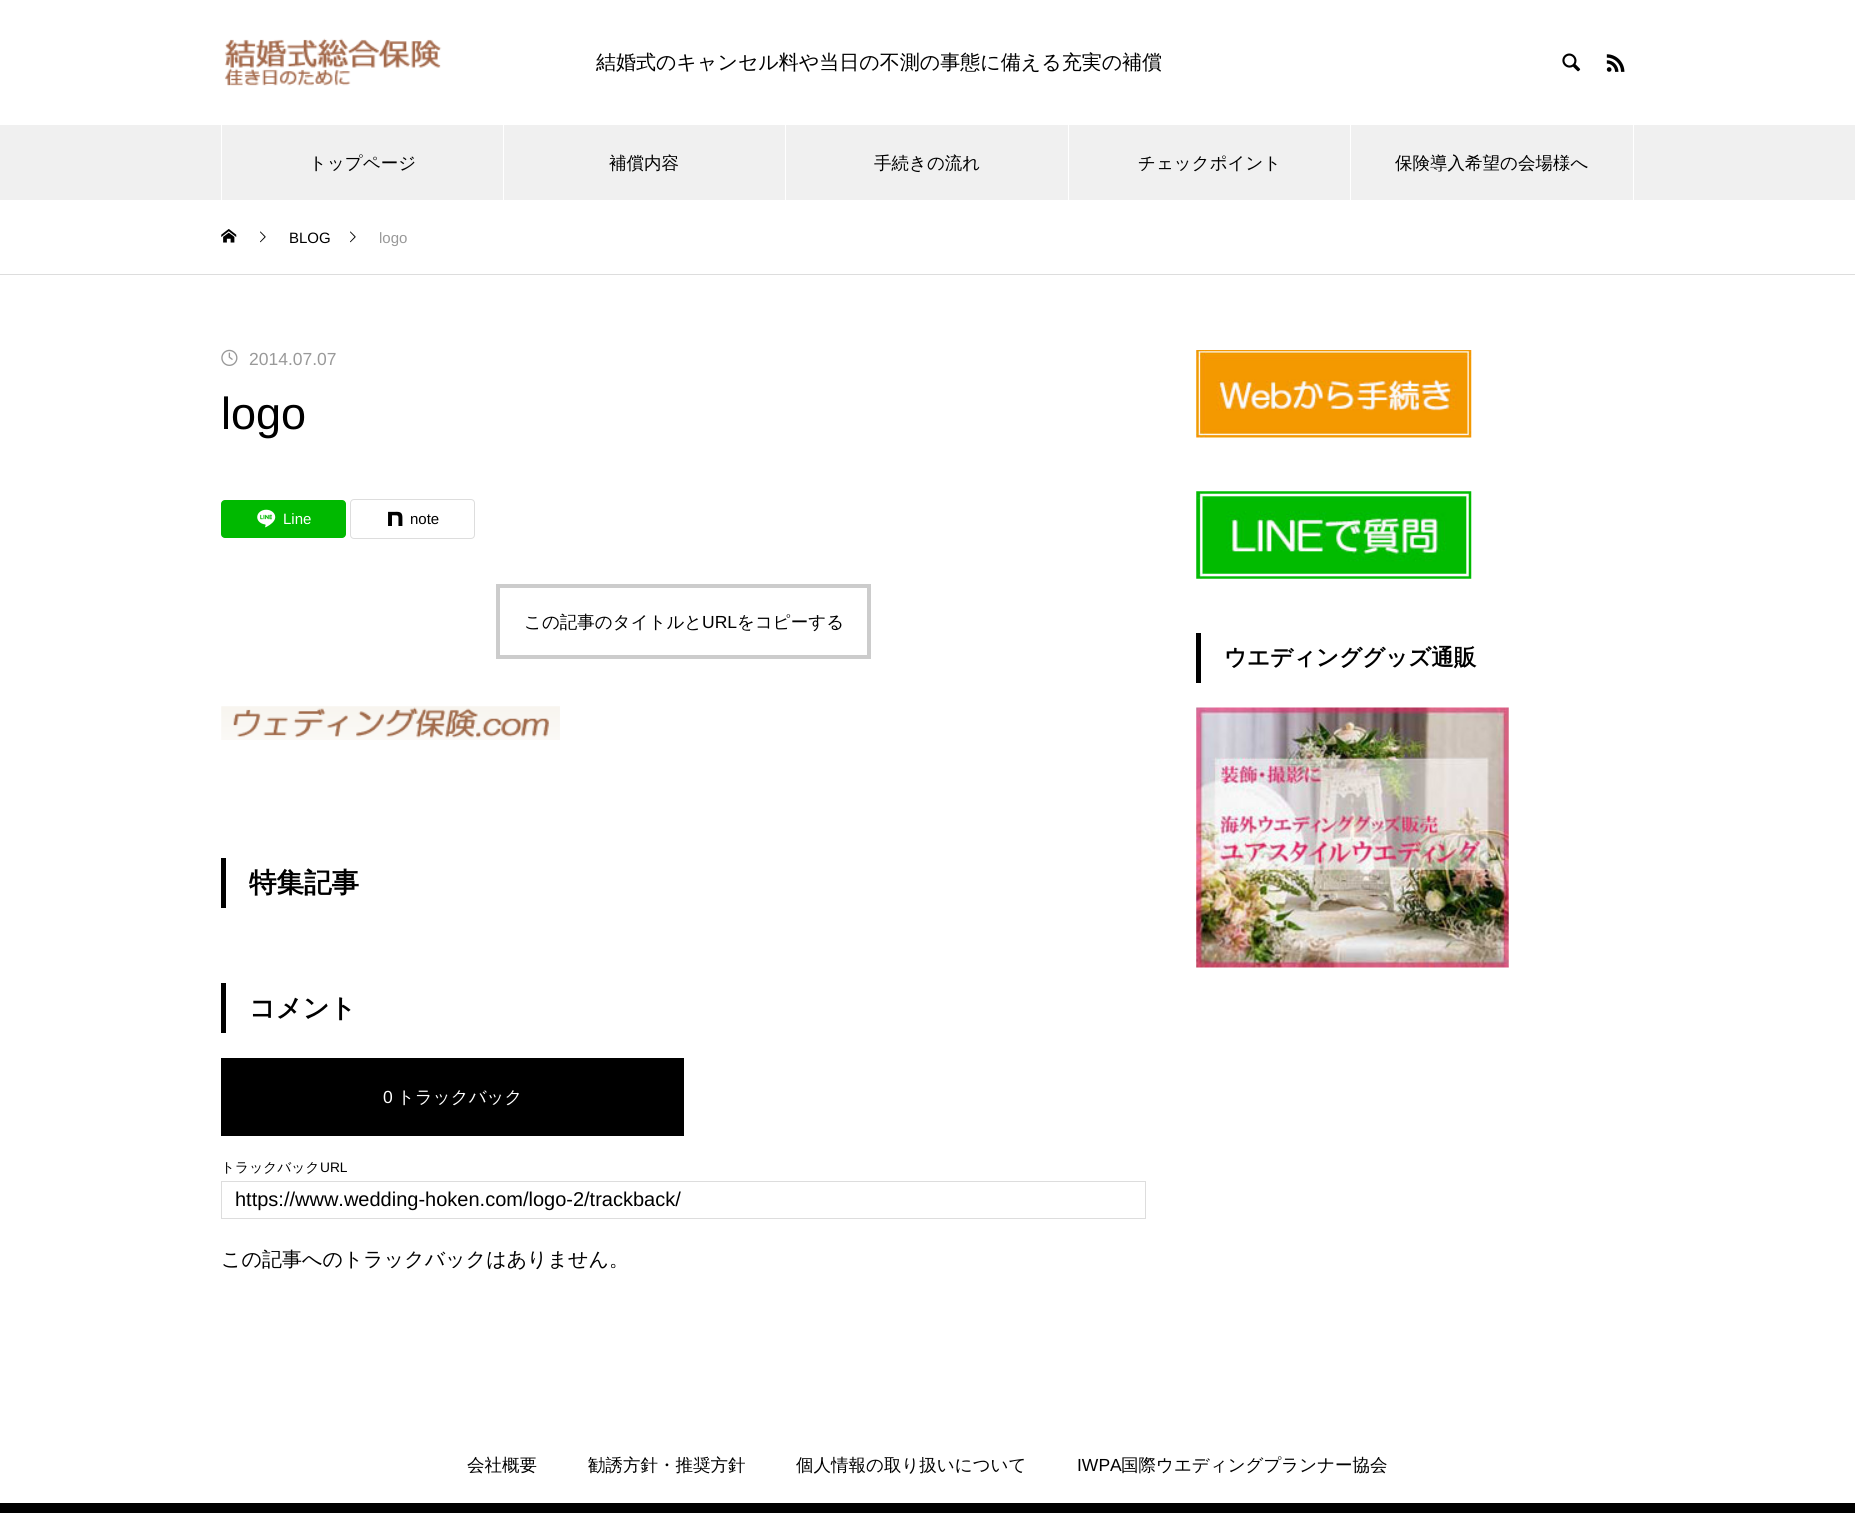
import math
import cairo

surface = cairo.ImageSurface(cairo.FORMAT_RGB24, 1855, 1513)
c = cairo.Context(surface)
options = cairo.FontOptions()
options.set_hint_metrics(cairo.HINT_METRICS_OFF)
options.set_hint_style(cairo.HINT_STYLE_NONE)
c.set_font_options(options)
c.set_miter_limit(4)
def C(code):
 c.set_source_rgb(*(v / 255 for v in bytes.fromhex(code[-6:])))
def F(family, size, italic, bold):
 c.select_font_face(family, cairo.FONT_SLANT_ITALIC if italic else cairo.FONT_SLANT_NORMAL, cairo.FONT_WEIGHT_BOLD if bold else cairo.FONT_WEIGHT_NORMAL)
 c.set_font_size(size)
def T(x, y, s):
 c.move_to(x, y)
 c.show_text(s)
def R(x, y, w, h):
 c.rectangle(x, y, w, h)
 c.fill()
def Q(x, y, w, h, r):
 c.new_sub_path()
 for i, (u, v) in enumerate([(x + w - r, y + h - r), (x + r, y + h - r), (x + r, y + r), (x + w - r, y + r)]):
  c.arc(u, v, r, i * math.pi / 2, (i + 1) * math.pi / 2)
 c.close_path()
def I(path, x, y, w, h):
 c.save()
 c.set_source_surface(cairo.ImageSurface.create_from_png(path), x, y)
 c.rectangle(x, y, w, h)
 c.fill()
 c.restore()
C('ffffff')
c.paint()
I('1.png',224,38,218,48)
F('WenQuanYi Zen Hei Medium',20,0,0)
C('000000')
T(596,69,'結婚式のキャンセル料や当日の不測の事態に備える充実の補償')
I('2.png',1562,53,19,19)
I('3.png',1606,54,19,18)
C('f0f0f0')
R(0,125,1855,75)
C('ffffff')
R(503,125,1,75)
R(221,125,1,75)
F('WenQuanYi Zen Hei Medium',17.5,0,0)
C('000000')
T(309,169,'トップページ')
C('ffffff')
R(785,125,1,75)
C('000000')
T(609,169,'補償内容')
C('ffffff')
R(1068,125,1,75)
C('000000')
T(874,169,'手続きの流れ')
C('ffffff')
R(1350,125,1,75)
C('000000')
T(1138,169,'チェックポイント')
C('ffffff')
R(1633,125,1,75)
C('000000')
T(1395,169,'保険導入希望の会場様へ')
C('dddddd')
R(0,274,1855,1)
I('4.png',221,229,16,14)
I('5.png',260,231,6,12)
F('Liberation Sans',15,0,0)
C('000000')
T(289,243,'BLOG')
I('5.png',350,231,6,12)
C('999999')
T(379,243,'logo')
I('6.png',221,349,17,17)
F('Liberation Sans',17.5,0,0)
T(249,365,'2014.07.07')
F('Liberation Sans',45,0,0)
C('000000')
T(221,429,'logo')
C('00b900')
Q(221,500,125,38,4)
c.fill()
I('7.png',257,509,19,19)
F('Liberation Sans',15,0,0)
C('ffffff')
T(283,524,'Line')
Q(350.5,499.5,124,39,3.5)
C('dddddd')
c.set_line_width(1)
c.stroke()
I('8.png',388,511,15,15)
C('000000')
T(410,524,'note')
c.rectangle(498,586,371,71)
C('cccccc')
c.set_line_width(4)
c.stroke()
F('WenQuanYi Zen Hei Medium',17.5,0,0)
C('000000')
T(524,628,'この記事のタイトルと')
F('Liberation Sans',17.5,0,0)
T(702,628,'URL')
F('WenQuanYi Zen Hei Medium',17.5,0,0)
T(737,628,'をコピーする')
I('9.png',221,706,339,34)
R(221,858,5,50)
F('WenQuanYi Zen Hei',27.5,0,1)
T(249,892,'特集記事')
R(221,983,5,50)
F('WenQuanYi Zen Hei',26.25,0,1)
T(249,1017,'コメント')
R(221,1058,463,78)
F('Liberation Sans',17.5,0,0)
C('ffffff')
T(383,1103,'0')
F('WenQuanYi Zen Hei Medium',17.5,0,0)
T(397,1103,'トラックバック')
F('WenQuanYi Zen Hei Medium',13.75,0,0)
C('000000')
T(221,1172,'トラックバック')
F('Liberation Sans',13.75,0,0)
T(320,1172,'URL')
c.rectangle(221.5,1181.5,924,37)
C('dddddd')
c.set_line_width(1)
c.stroke()
F('Liberation Sans',20,0,0)
C('000000')
T(235,1206,'https://www.wedding-hoken.com/logo-2/trackback/')
F('WenQuanYi Zen Hei Medium',20,0,0)
T(221,1266,'この記事へのトラックバックはありません。')
I('10.png',1196,350,276,88)
I('11.png',1196,491,276,88)
R(1196,633,5,50)
F('WenQuanYi Zen Hei',22.5,0,1)
T(1224,665,'ウエディンググッズ通販')
I('12.png',1196,707,313,261)
F('WenQuanYi Zen Hei Medium',17.5,0,0)
T(467,1471,'会社概要')
T(588,1471,'勧誘方針・推奨方針')
T(796,1471,'個人情報の取り扱いについて')
F('Liberation Sans',17.5,0,0)
T(1077,1471,'IWPA')
F('WenQuanYi Zen Hei Medium',17.5,0,0)
T(1121,1471,'国際ウエディングプランナー協会')
R(0,1503,1855,10)
surface.write_to_png('o.png')
